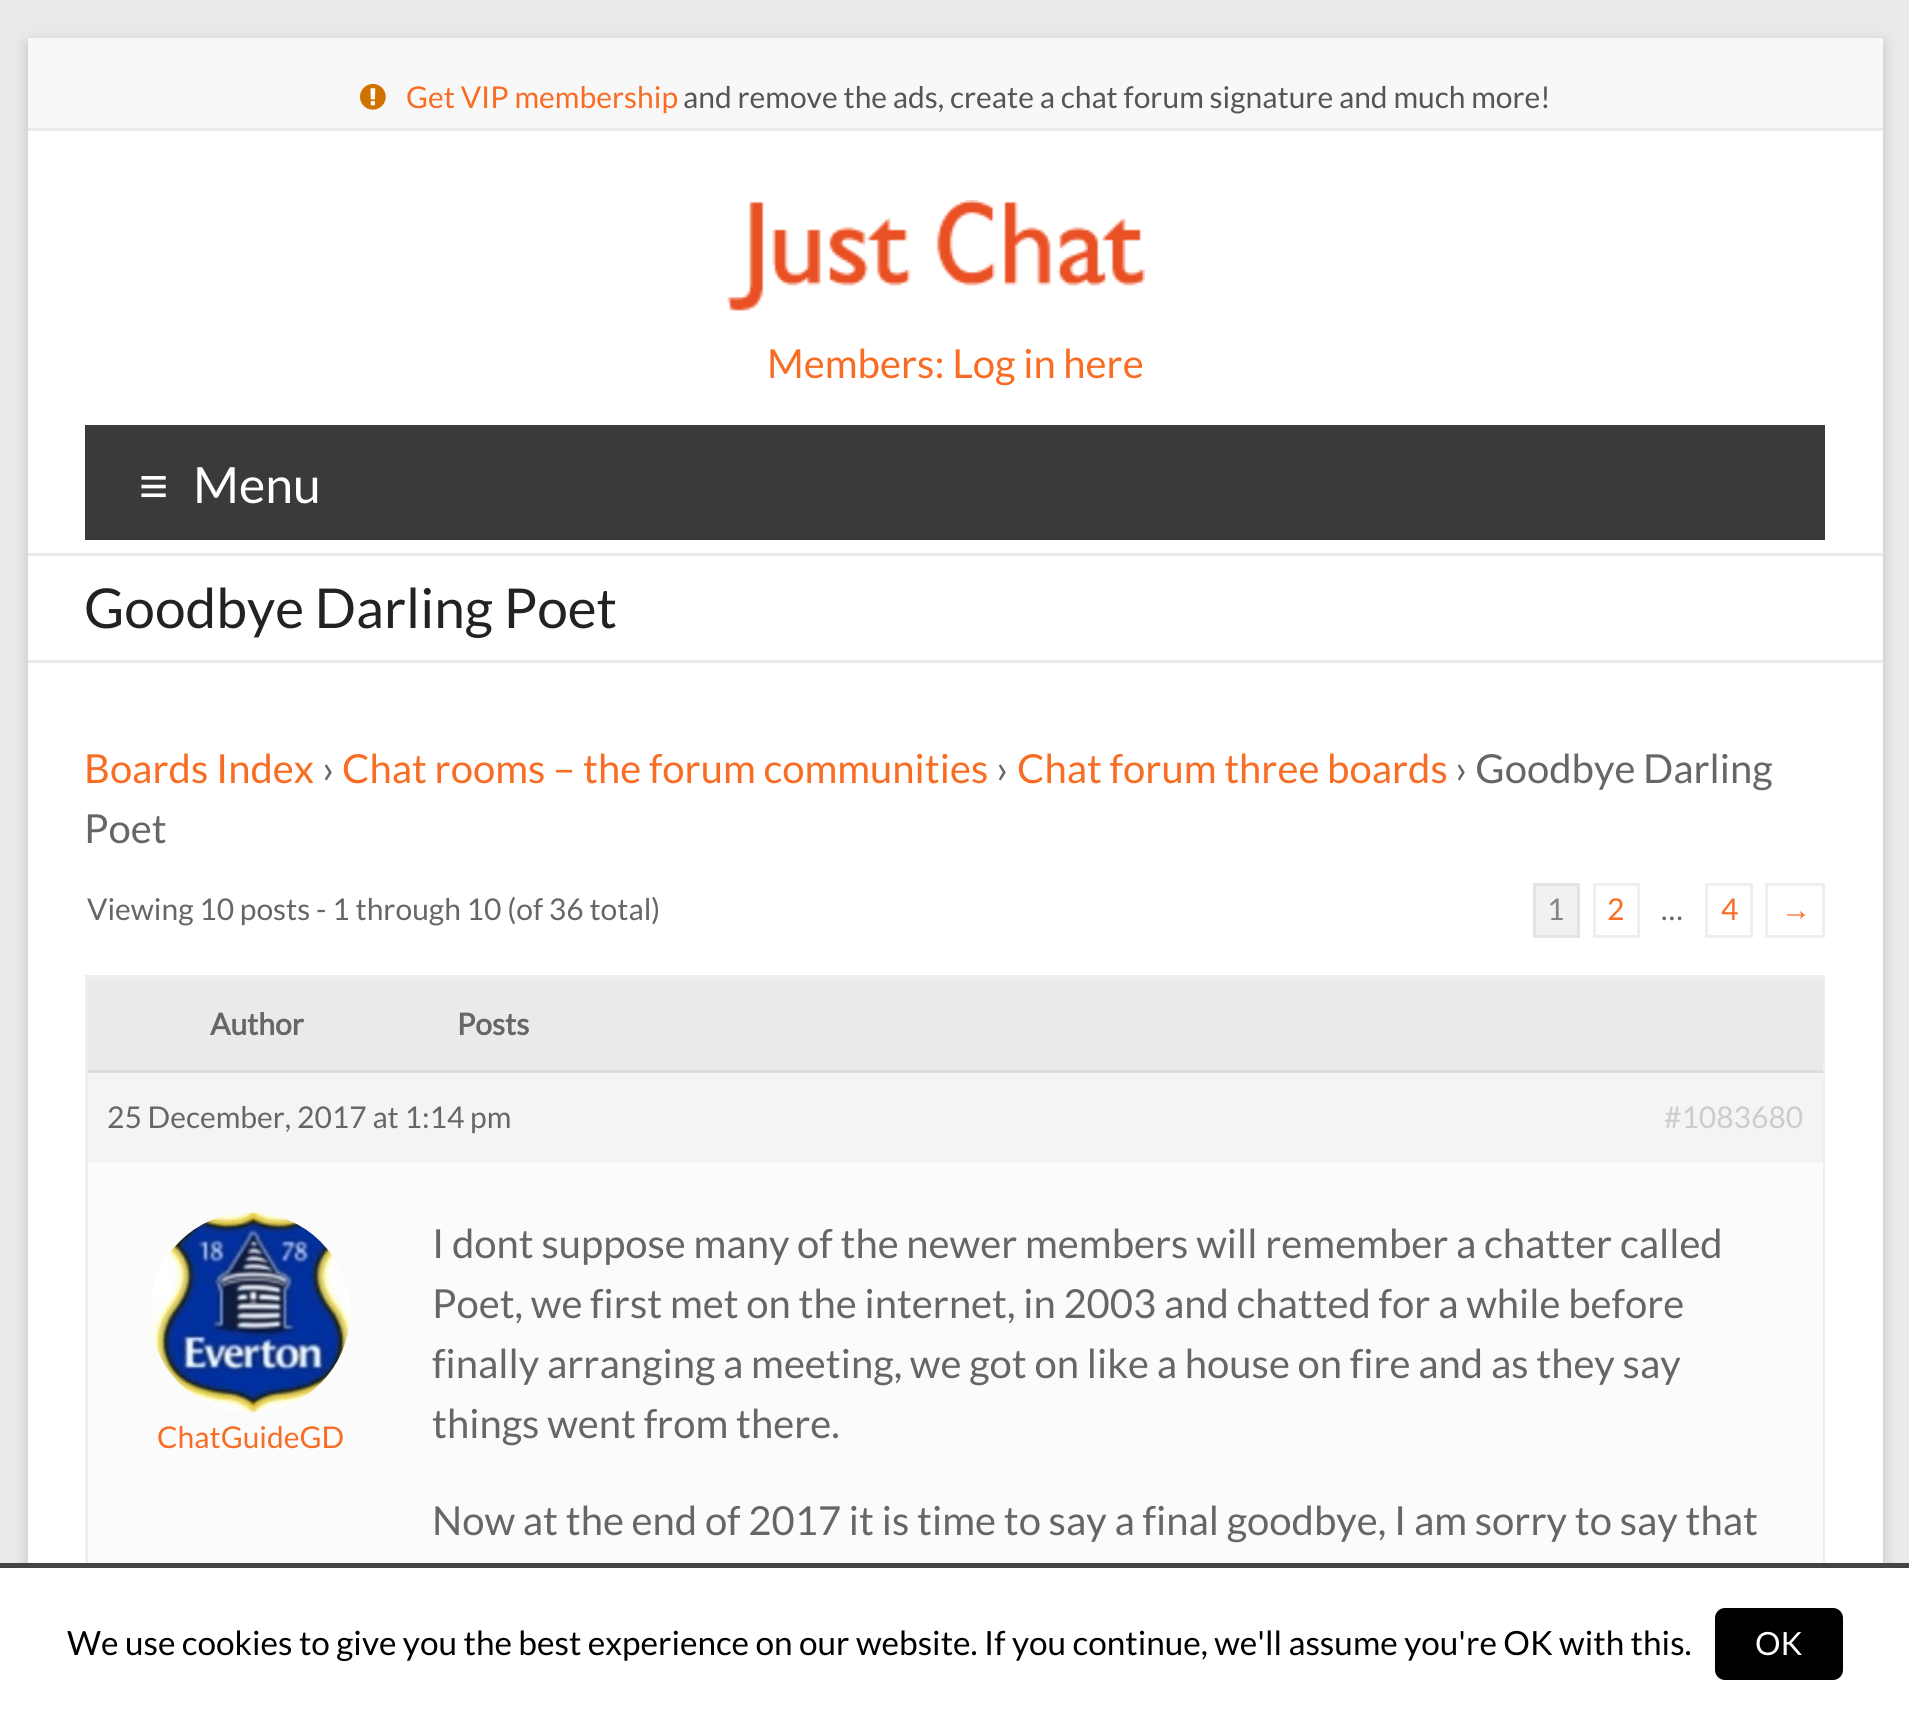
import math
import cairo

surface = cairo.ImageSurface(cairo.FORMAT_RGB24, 1909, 1718)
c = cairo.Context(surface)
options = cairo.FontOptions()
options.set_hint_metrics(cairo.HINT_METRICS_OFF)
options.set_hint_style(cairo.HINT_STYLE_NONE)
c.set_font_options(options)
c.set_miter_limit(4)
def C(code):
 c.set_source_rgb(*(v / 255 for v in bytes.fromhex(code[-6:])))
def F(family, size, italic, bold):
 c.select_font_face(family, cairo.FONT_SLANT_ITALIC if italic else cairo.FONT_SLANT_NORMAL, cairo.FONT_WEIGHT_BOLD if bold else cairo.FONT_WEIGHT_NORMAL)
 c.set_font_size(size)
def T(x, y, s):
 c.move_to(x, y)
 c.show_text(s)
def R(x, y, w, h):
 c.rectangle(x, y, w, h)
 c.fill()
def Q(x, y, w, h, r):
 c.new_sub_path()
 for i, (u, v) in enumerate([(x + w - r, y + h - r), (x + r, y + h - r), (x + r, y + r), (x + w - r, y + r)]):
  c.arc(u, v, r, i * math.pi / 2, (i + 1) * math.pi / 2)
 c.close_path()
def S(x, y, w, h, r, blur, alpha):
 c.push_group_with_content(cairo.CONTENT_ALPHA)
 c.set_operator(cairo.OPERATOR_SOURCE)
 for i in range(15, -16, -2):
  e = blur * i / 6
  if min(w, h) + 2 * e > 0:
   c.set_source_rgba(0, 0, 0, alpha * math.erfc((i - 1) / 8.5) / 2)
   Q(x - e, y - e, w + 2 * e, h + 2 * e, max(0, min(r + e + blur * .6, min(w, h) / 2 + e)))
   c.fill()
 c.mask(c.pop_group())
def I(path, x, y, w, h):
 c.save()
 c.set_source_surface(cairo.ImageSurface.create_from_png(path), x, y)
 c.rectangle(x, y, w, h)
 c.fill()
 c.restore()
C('eaeaea')
c.paint()
C('646464')
S(28,43,1855,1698,0,7.5,.3)
C('ffffff')
R(28,131,1855,1432)
C('f8f8f8')
R(28,38,1855,90)
C('eaeaea')
R(28,128,1855,3)
I('1.png',360,83,26,27)
F('Lato',30,0,0)
C('f86d23')
T(406,108,'Get VIP membership')
C('555555')
T(683,108,'and remove the ads, create a chat forum signature and much more!')
C('eaeaea')
R(28,553,1855,3)
I('2.png',727,200,418,111)
F('Lato',40,0,0)
C('f86d23')
T(767,378,'Members: Log in here')
C('3a3a3a')
R(85,425,1740,115)
F('Liberation Sans',50,0,0)
C('ffffff')
T(139,503,'≡')
F('Lato',50,0,0)
T(193,503,'Menu')
C('eaeaea')
R(28,660,1855,3)
F('Lato',55,0,0)
C('222222')
T(84,628,'Goodbye Darling Poet')
F('Lato',40,0,0)
C('f86d23')
T(84,783,'Boards Index')
C('666666')
T(322,783,'›')
C('f86d23')
T(342,783,'Chat rooms – the forum communities')
C('666666')
T(996,783,'›')
C('f86d23')
T(1017,783,'Chat forum three boards')
C('666666')
T(1455,783,'› Goodbye Darling')
T(84,843,'Poet')
F('Lato',30,0,0)
T(87,920,'Viewing 10 posts - 1 through 10 (of 36 total)')
C('f1f1f1')
c.rectangle(1534.5,884.5,44,52)
c.fill_preserve()
C('e4e4e4')
c.set_line_width(3)
c.stroke()
C('858585')
T(1547,920,'1')
c.rectangle(1594.5,884.5,44,52)
C('efefef')
c.stroke()
C('f86d23')
T(1607,920,'2')
C('666666')
T(1661,920,'…')
c.rectangle(1706.5,884.5,45,52)
C('efefef')
c.stroke()
C('f86d23')
T(1721,920,'4')
c.rectangle(1766.5,884.5,57,52)
C('efefef')
c.stroke()
F('Liberation Sans',30,0,0)
C('f86d23')
T(1781,920,'→')
c.rectangle(86.5,976.5,1737,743)
C('eeeeee')
c.stroke()
C('eaeaea')
R(88,981,1735,89)
C('eeeeee')
R(88,978,1735,3)
F('Lato',30,0,1)
C('666666')
T(210,1035,'Author')
T(457,1035,'Posts')
C('f4f4f4')
R(88,1073,1735,90)
C('dddddd')
R(88,1070,1735,3)
F('Lato',30,0,0)
C('666666')
T(107,1128,'25 December, 2017 at 1:14 pm')
C('cccccc')
T(1664,1128,'#1083680')
C('fbfbfb')
R(88,1163,1735,400)
I('3.png',150,1212,200,201)
C('f86d23')
T(157,1448,'ChatGuideGD')
F('Lato',40,0,0)
C('666666')
T(432,1258,'I dont suppose many of the newer members will remember a chatter called')
T(432,1318,'Poet, we first met on the internet, in 2003 and chatted for a while before')
T(432,1378,'finally arranging a meeting, we got on like a house on fire and as they say')
T(432,1438,'things went from there.')
T(432,1535,'Now at the end of 2017 it is time to say a final goodbye, I am sorry to say that')
C('ffffff')
R(0,1568,1909,150)
C('444444')
R(0,1563,1909,5)
F('Lato',33.35,0,0)
C('000000')
T(67,1655,'We use cookies to give you the best experience on our website. If you continue, we\'ll assume you\'re OK with this.')
Q(1715,1608,128,72,10)
c.fill()
F('Lato',32,0,0)
C('ffffff')
T(1755,1655,'OK')
surface.write_to_png('o.png')
